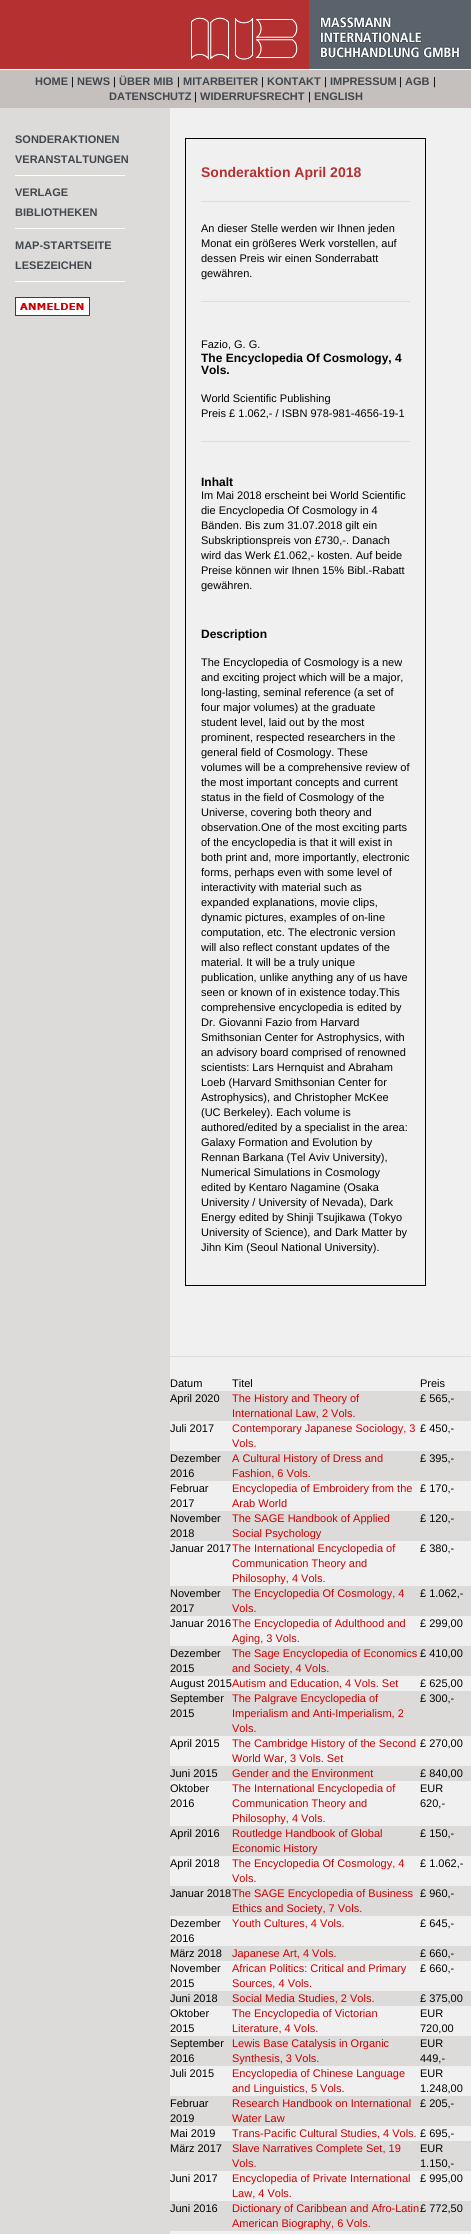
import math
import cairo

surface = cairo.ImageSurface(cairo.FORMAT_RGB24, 471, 2234)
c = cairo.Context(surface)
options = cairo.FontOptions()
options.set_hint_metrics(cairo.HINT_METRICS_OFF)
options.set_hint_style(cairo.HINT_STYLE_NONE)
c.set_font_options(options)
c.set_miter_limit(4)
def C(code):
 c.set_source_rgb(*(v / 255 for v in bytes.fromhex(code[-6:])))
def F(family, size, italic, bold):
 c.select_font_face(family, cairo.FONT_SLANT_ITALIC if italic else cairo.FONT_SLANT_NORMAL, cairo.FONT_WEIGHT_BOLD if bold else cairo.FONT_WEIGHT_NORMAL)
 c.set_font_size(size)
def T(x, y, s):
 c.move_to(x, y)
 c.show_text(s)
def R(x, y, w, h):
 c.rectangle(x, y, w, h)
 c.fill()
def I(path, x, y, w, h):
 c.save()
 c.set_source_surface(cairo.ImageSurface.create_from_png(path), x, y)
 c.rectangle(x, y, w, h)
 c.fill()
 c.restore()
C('f0f0f0')
c.paint()
C('dddbda')
R(0,108,170,2126)
C('b53131')
R(0,0,191,69)
I('1.png',191,0,280,69)
C('c5bfbd')
R(0,70,471,38)
C('ffffff')
R(0,69,471,1)
F('Liberation Sans',11,0,1)
C('41474c')
T(35,85,'HOME')
F('Liberation Sans',11,0,0)
C('000000')
T(71,85,'|')
F('Liberation Sans',11,0,1)
C('41474c')
T(77,85,'NEWS')
F('Liberation Sans',11,0,0)
C('000000')
T(113,85,'|')
F('Liberation Sans',11,0,1)
C('41474c')
T(119,85,'ÜBER MIB')
F('Liberation Sans',11,0,0)
C('000000')
T(177,85,'|')
F('Liberation Sans',11,0,1)
C('41474c')
T(183,85,'MITARBEITER')
F('Liberation Sans',11,0,0)
C('000000')
T(261,85,'|')
F('Liberation Sans',11,0,1)
C('41474c')
T(267,85,'KONTAKT')
F('Liberation Sans',11,0,0)
C('000000')
T(324,85,'|')
F('Liberation Sans',11,0,1)
C('41474c')
T(330,85,'IMPRESSUM')
F('Liberation Sans',11,0,0)
C('000000')
T(399,85,'|')
F('Liberation Sans',11,0,1)
C('41474c')
T(405,85,'AGB')
F('Liberation Sans',11,0,0)
C('000000')
T(433,85,'|')
F('Liberation Sans',11,0,1)
C('41474c')
T(109,100,'DATENSCHUTZ')
F('Liberation Sans',11,0,0)
C('000000')
T(194,100,'|')
F('Liberation Sans',11,0,1)
C('41474c')
T(200,100,'WIDERRUFSRECHT')
F('Liberation Sans',11,0,0)
C('000000')
T(308,100,'|')
F('Liberation Sans',11,0,1)
C('41474c')
T(314,100,'ENGLISH')
C('ffffff')
R(15,175,110,1)
C('41474c')
T(15,143,'SONDERAKTIONEN')
T(15,163,'VERANSTALTUNGEN')
C('ffffff')
R(15,228,110,1)
C('41474c')
T(15,196,'VERLAGE')
T(15,216,'BIBLIOTHEKEN')
C('ffffff')
R(15,281,110,1)
C('41474c')
T(15,249,'MAP-STARTSEITE')
T(15,269,'LESEZEICHEN')
I('2.png',15,297,75,19)
c.rectangle(185.5,138.5,240,1147)
C('000000')
c.set_line_width(1)
c.stroke()
F('Liberation Sans',14,0,1)
C('b53131')
T(201,177,'Sonderaktion April 2018')
C('dddddd')
R(201,201,209,1)
F('Liberation Sans',11,0,0)
C('000000')
T(201,232,'An dieser Stelle werden wir Ihnen jeden')
T(201,247,'Monat ein größeres Werk vorstellen, auf')
T(201,262,'dessen Preis wir einen Sonderrabatt')
T(201,277,'gewähren.')
C('dddddd')
R(201,301,209,1)
C('000000')
T(201,348,'Fazio, G. G.')
F('Liberation Sans',12,0,1)
T(201,362,'The Encyclopedia Of Cosmology, 4')
T(201,374,'Vols.')
F('Liberation Sans',11,0,0)
T(201,402,'World Scientific Publishing')
T(201,417,'Preis £ 1.062,- / ISBN 978-981-4656-19-1')
C('dddddd')
R(201,441,209,1)
F('Liberation Sans',12,0,1)
C('000000')
T(201,486,'Inhalt')
F('Liberation Sans',11,0,0)
T(201,499,'Im Mai 2018 erscheint bei World Scientific')
T(201,514,'die Encyclopedia Of Cosmology in 4')
T(201,529,'Bänden. Bis zum 31.07.2018 gilt ein')
T(201,544,'Subskriptionspreis von £730,-. Danach')
T(201,559,'wird das Werk £1.062,- kosten. Auf beide')
T(201,574,'Preise können wir Ihnen 15% Bibl.-Rabatt')
T(201,589,'gewähren.')
F('Liberation Sans',12,0,1)
T(201,638,'Description')
F('Liberation Sans',11,0,0)
T(201,666,'The Encyclopedia of Cosmology is a new')
T(201,681,'and exciting project which will be a major,')
T(201,696,'long-lasting, seminal reference (a set of')
T(201,711,'four major volumes) at the graduate')
T(201,726,'student level, laid out by the most')
T(201,741,'prominent, respected researchers in the')
T(201,756,'general field of Cosmology. These')
T(201,771,'volumes will be a comprehensive review of')
T(201,786,'the most important concepts and current')
T(201,801,'status in the field of Cosmology of the')
T(201,816,'Universe, covering both theory and')
T(201,831,'observation.One of the most exciting parts')
T(201,846,'of the encyclopedia is that it will exist in')
T(201,861,'both print and, more importantly, electronic')
T(201,876,'forms, perhaps even with some level of')
T(201,891,'interactivity with material such as')
T(201,906,'expanded explanations, movie clips,')
T(201,921,'dynamic pictures, examples of on-line')
T(201,936,'computation, etc. The electronic version')
T(201,951,'will also reflect constant updates of the')
T(201,966,'material. It will be a truly unique')
T(201,981,'publication, unlike anything any of us have')
T(201,996,'seen or known of in existence today.This')
T(201,1011,'comprehensive encyclopedia is edited by')
T(201,1026,'Dr. Giovanni Fazio from Harvard')
T(201,1041,'Smithsonian Center for Astrophysics, with')
T(201,1056,'an advisory board comprised of renowned')
T(201,1071,'scientists: Lars Hernquist and Abraham')
T(201,1086,'Loeb (Harvard Smithsonian Center for')
T(201,1101,'Astrophysics), and Christopher McKee')
T(201,1116,'(UC Berkeley). Each volume is')
T(201,1131,'authored/edited by a specialist in the area:')
T(201,1146,'Galaxy Formation and Evolution by')
T(201,1161,'Rennan Barkana (Tel Aviv University),')
T(201,1176,'Numerical Simulations in Cosmology')
T(201,1191,'edited by Kentaro Nagamine (Osaka')
T(201,1206,'University / University of Nevada), Dark')
T(201,1221,'Energy edited by Shinji Tsujikawa (Tokyo')
T(201,1236,'University of Science), and Dark Matter by')
T(201,1251,'Jihn Kim (Seoul National University).')
C('dddddd')
R(170,1356,301,1)
C('000000')
T(170,1387,'Datum')
T(232,1387,'Titel')
T(420,1387,'Preis')
C('dddbda')
R(170,1391,301,30)
C('000000')
T(170,1402,'April 2020')
C('cc0000')
T(232,1402,'The History and Theory of')
T(232,1417,'International Law, 2 Vols.')
C('000000')
T(420,1402,'£ 565,-')
T(170,1432,'Juli 2017')
C('cc0000')
T(232,1432,'Contemporary Japanese Sociology, 3')
T(232,1447,'Vols.')
C('000000')
T(420,1432,'£ 450,-')
C('dddbda')
R(170,1451,301,30)
C('000000')
T(170,1462,'Dezember')
T(170,1477,'2016')
C('cc0000')
T(232,1462,'A Cultural History of Dress and')
T(232,1477,'Fashion, 6 Vols.')
C('000000')
T(420,1462,'£ 395,-')
T(170,1492,'Februar')
T(170,1507,'2017')
C('cc0000')
T(232,1492,'Encyclopedia of Embroidery from the')
T(232,1507,'Arab World')
C('000000')
T(420,1492,'£ 170,-')
C('dddbda')
R(170,1511,301,30)
C('000000')
T(170,1522,'November')
T(170,1537,'2018')
C('cc0000')
T(232,1522,'The SAGE Handbook of Applied')
T(232,1537,'Social Psychology')
C('000000')
T(420,1522,'£ 120,-')
T(170,1552,'Januar 2017')
C('cc0000')
T(232,1552,'The International Encyclopedia of')
T(232,1567,'Communication Theory and')
T(232,1582,'Philosophy, 4 Vols.')
C('000000')
T(420,1552,'£ 380,-')
C('dddbda')
R(170,1586,301,30)
C('000000')
T(170,1597,'November')
T(170,1612,'2017')
C('cc0000')
T(232,1597,'The Encyclopedia Of Cosmology, 4')
T(232,1612,'Vols.')
C('000000')
T(420,1597,'£ 1.062,-')
T(170,1627,'Januar 2016')
C('cc0000')
T(232,1627,'The Encyclopedia of Adulthood and')
T(232,1642,'Aging, 3 Vols.')
C('000000')
T(420,1627,'£ 299,00')
C('dddbda')
R(170,1646,301,30)
C('000000')
T(170,1657,'Dezember')
T(170,1672,'2015')
C('cc0000')
T(232,1657,'The Sage Encyclopedia of Economics')
T(232,1672,'and Society, 4 Vols.')
C('000000')
T(420,1657,'£ 410,00')
T(170,1687,'August 2015')
C('cc0000')
T(232,1687,'Autism and Education, 4 Vols. Set')
C('000000')
T(420,1687,'£ 625,00')
C('dddbda')
R(170,1691,301,45)
C('000000')
T(170,1702,'September')
T(170,1717,'2015')
C('cc0000')
T(232,1702,'The Palgrave Encyclopedia of')
T(232,1717,'Imperialism and Anti-Imperialism, 2')
T(232,1732,'Vols.')
C('000000')
T(420,1702,'£ 300,-')
T(170,1747,'April 2015')
C('cc0000')
T(232,1747,'The Cambridge History of the Second')
T(232,1762,'World War, 3 Vols. Set')
C('000000')
T(420,1747,'£ 270,00')
C('dddbda')
R(170,1766,301,15)
C('000000')
T(170,1777,'Juni 2015')
C('cc0000')
T(232,1777,'Gender and the Environment')
C('000000')
T(420,1777,'£ 840,00')
T(170,1792,'Oktober')
T(170,1807,'2016')
C('cc0000')
T(232,1792,'The International Encyclopedia of')
T(232,1807,'Communication Theory and')
T(232,1822,'Philosophy, 4 Vols.')
C('000000')
T(420,1792,'EUR')
T(420,1807,'620,-')
C('dddbda')
R(170,1826,301,30)
C('000000')
T(170,1837,'April 2016')
C('cc0000')
T(232,1837,'Routledge Handbook of Global')
T(232,1852,'Economic History')
C('000000')
T(420,1837,'£ 150,-')
T(170,1867,'April 2018')
C('cc0000')
T(232,1867,'The Encyclopedia Of Cosmology, 4')
T(232,1882,'Vols.')
C('000000')
T(420,1867,'£ 1.062,-')
C('dddbda')
R(170,1886,301,30)
C('000000')
T(170,1897,'Januar 2018')
C('cc0000')
T(232,1897,'The SAGE Encyclopedia of Business')
T(232,1912,'Ethics and Society, 7 Vols.')
C('000000')
T(420,1897,'£ 960,-')
T(170,1927,'Dezember')
T(170,1942,'2016')
C('cc0000')
T(232,1927,'Youth Cultures, 4 Vols.')
C('000000')
T(420,1927,'£ 645,-')
C('dddbda')
R(170,1946,301,15)
C('000000')
T(170,1957,'März 2018')
C('cc0000')
T(232,1957,'Japanese Art, 4 Vols.')
C('000000')
T(420,1957,'£ 660,-')
T(170,1972,'November')
T(170,1987,'2015')
C('cc0000')
T(232,1972,'African Politics: Critical and Primary')
T(232,1987,'Sources, 4 Vols.')
C('000000')
T(420,1972,'£ 660,-')
C('dddbda')
R(170,1991,301,15)
C('000000')
T(170,2002,'Juni 2018')
C('cc0000')
T(232,2002,'Social Media Studies, 2 Vols.')
C('000000')
T(420,2002,'£ 375,00')
T(170,2017,'Oktober')
T(170,2032,'2015')
C('cc0000')
T(232,2017,'The Encyclopedia of Victorian')
T(232,2032,'Literature, 4 Vols.')
C('000000')
T(420,2017,'EUR')
T(420,2032,'720,00')
C('dddbda')
R(170,2036,301,30)
C('000000')
T(170,2047,'September')
T(170,2062,'2016')
C('cc0000')
T(232,2047,'Lewis Base Catalysis in Organic')
T(232,2062,'Synthesis, 3 Vols.')
C('000000')
T(420,2047,'EUR')
T(420,2062,'449,-')
T(170,2077,'Juli 2015')
C('cc0000')
T(232,2077,'Encyclopedia of Chinese Language')
T(232,2092,'and Linguistics, 5 Vols.')
C('000000')
T(420,2077,'EUR')
T(420,2092,'1.248,00')
C('dddbda')
R(170,2096,301,30)
C('000000')
T(170,2107,'Februar')
T(170,2122,'2019')
C('cc0000')
T(232,2107,'Research Handbook on International')
T(232,2122,'Water Law')
C('000000')
T(420,2107,'£ 205,-')
T(170,2137,'Mai 2019')
C('cc0000')
T(232,2137,'Trans-Pacific Cultural Studies, 4 Vols.')
C('000000')
T(420,2137,'£ 695,-')
C('dddbda')
R(170,2141,301,30)
C('000000')
T(170,2152,'März 2017')
C('cc0000')
T(232,2152,'Slave Narratives Complete Set, 19')
T(232,2167,'Vols.')
C('000000')
T(420,2152,'EUR')
T(420,2167,'1.150,-')
T(170,2182,'Juni 2017')
C('cc0000')
T(232,2182,'Encyclopedia of Private International')
T(232,2197,'Law, 4 Vols.')
C('000000')
T(420,2182,'£ 995,00')
C('dddbda')
R(170,2201,301,30)
C('000000')
T(170,2212,'Juni 2016')
C('cc0000')
T(232,2212,'Dictionary of Caribbean and Afro-Latin')
T(232,2227,'American Biography, 6 Vols.')
C('000000')
T(420,2212,'£ 772,50')
surface.write_to_png('o.png')
